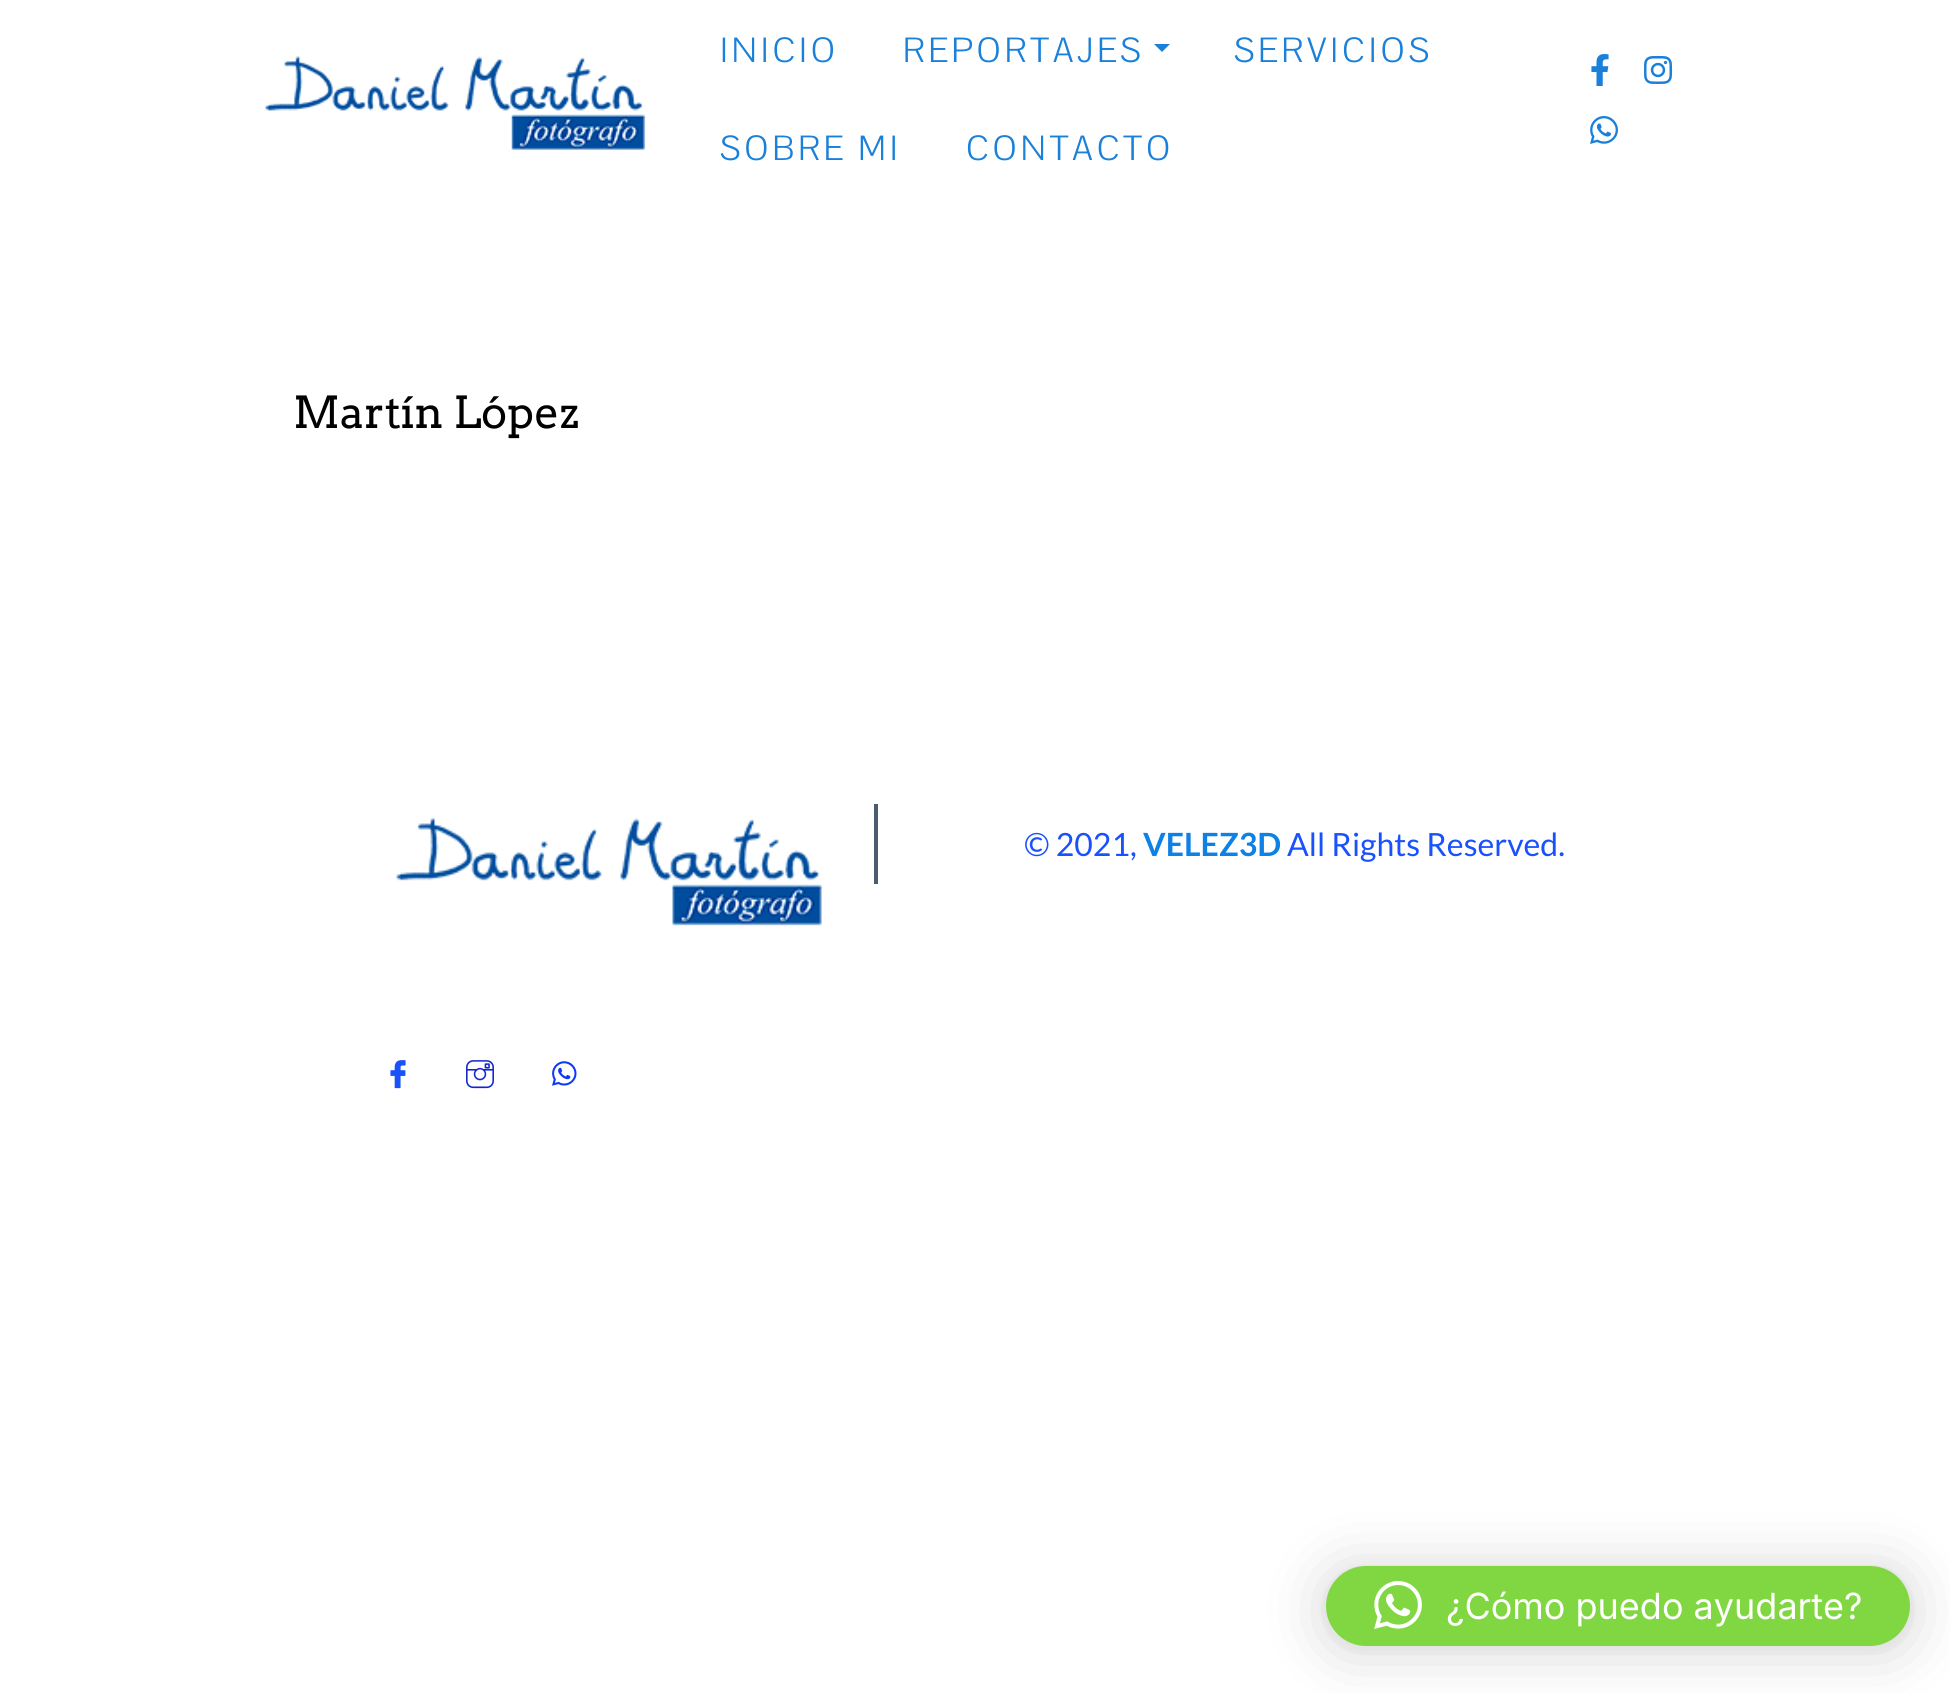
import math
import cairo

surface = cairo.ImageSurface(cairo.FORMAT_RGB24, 1950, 1694)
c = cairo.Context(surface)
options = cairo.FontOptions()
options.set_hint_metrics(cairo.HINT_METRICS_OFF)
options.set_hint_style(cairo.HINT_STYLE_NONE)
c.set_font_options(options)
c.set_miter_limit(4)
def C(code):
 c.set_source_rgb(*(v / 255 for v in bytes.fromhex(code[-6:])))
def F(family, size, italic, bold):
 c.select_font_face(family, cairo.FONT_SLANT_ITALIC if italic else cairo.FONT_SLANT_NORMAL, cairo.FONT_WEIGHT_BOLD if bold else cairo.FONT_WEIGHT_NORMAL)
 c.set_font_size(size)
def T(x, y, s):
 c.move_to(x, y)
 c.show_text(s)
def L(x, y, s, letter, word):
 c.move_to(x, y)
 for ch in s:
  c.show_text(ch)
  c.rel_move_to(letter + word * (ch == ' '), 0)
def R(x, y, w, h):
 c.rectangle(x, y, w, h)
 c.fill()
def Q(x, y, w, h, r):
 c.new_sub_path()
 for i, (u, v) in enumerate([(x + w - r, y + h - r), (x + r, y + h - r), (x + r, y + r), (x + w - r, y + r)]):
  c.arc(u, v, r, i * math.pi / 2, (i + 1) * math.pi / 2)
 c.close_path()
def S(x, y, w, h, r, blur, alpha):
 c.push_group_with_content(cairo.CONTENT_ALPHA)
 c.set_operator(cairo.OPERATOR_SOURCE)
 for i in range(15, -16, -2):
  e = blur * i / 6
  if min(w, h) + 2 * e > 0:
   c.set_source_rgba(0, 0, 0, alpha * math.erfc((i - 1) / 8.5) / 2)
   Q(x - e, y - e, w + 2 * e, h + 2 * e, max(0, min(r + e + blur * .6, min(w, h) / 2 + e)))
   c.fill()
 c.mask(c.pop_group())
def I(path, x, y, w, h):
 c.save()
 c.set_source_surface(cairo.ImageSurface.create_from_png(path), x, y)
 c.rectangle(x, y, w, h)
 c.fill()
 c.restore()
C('ffffff')
c.paint()
I('1.png',265,56,381,94)
F('Pavanam',36,0,0)
C('1a80d9')
L(720,62,'INICIO',4,0)
L(903,62,'REPORTAJES',4,0)
c.new_path()
c.move_to(1154,44)
c.line_to(1170,44)
c.line_to(1162,52)
c.close_path()
c.fill()
L(1234,62,'SERVICIOS',4,0)
L(720,160,'SOBRE MI',4,0)
L(966,160,'CONTACTO',4,0)
I('2.png',1591,54,18,32)
I('3.png',1644,55,29,29)
I('4.png',1590,116,28,28)
F('Arvo',44,0,0)
C('000000')
T(293,428,'Martín López')
I('5.png',396,818,426,108)
C('4b5c6e')
R(874,804,4,80)
F('Lato',32,0,0)
C('1951fd')
T(1024,856,'© 2021,')
F('Lato',32,0,1)
C('0e81e6')
T(1143,856,'VELEZ3D')
F('Lato',32,0,0)
C('1951fd')
T(1287,856,'All Rights Reserved.')
I('6.png',390,1060,16,29)
I('7.png',466,1060,28,29)
I('8.png',552,1061,25,25)
C('000000')
S(1326,1570,584,80,40,32,.16)
S(1326,1568,584,80,40,6,.06)
C('81d742')
Q(1326,1566,584,80,40)
c.fill()
I('9.png',1374,1581,48,48)
F('Inter',36,0,0)
C('ffffff')
T(1446,1619,'¿Cómo puedo ayudarte?')
surface.write_to_png('o.png')
